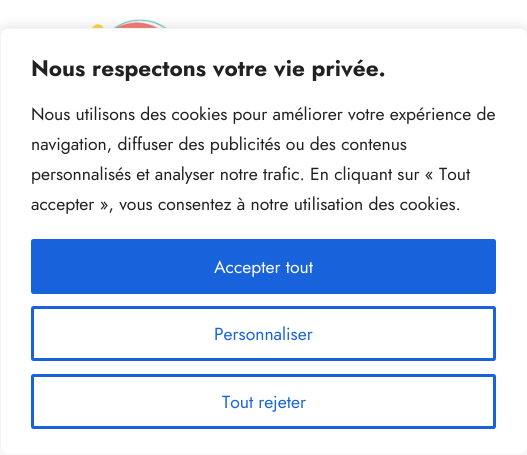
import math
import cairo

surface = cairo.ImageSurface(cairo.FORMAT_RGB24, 527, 455)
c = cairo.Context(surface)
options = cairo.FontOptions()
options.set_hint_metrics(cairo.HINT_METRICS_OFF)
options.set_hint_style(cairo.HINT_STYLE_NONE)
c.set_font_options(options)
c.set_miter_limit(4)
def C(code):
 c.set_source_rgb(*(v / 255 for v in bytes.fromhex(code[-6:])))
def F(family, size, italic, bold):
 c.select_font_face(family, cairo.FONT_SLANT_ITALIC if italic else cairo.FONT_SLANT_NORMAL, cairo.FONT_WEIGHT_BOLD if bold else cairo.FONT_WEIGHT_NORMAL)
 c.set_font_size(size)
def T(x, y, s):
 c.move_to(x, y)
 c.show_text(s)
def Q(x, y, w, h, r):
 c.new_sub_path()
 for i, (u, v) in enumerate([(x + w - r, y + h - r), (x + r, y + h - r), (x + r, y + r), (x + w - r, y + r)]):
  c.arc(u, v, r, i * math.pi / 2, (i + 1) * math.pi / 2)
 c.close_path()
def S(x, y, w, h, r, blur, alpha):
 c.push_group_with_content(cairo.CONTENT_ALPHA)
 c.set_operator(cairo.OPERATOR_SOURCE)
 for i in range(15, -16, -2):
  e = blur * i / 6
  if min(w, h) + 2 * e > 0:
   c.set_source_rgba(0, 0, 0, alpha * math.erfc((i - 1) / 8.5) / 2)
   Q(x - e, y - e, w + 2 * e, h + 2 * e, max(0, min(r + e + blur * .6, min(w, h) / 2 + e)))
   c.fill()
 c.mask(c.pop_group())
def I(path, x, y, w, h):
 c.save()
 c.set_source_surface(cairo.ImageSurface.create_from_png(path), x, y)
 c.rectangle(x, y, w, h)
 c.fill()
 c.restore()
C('ffffff')
c.paint()
I('1.png',70,19,147,9)
C('acabab')
S(0,26,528,428,8,6,.3)
C('ffffff')
Q(.5,28.5,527,426,7.5)
c.fill_preserve()
C('f4f4f4')
c.set_line_width(1)
c.stroke()
F('Jost',22.5,0,1)
C('212121')
T(31,76,'Nous respectons votre vie privée.')
F('Jost',17.5,0,0)
T(31,120,'Nous utilisons des cookies pour améliorer votre expérience de')
T(31,150,'navigation, diffuser des publicités ou des contenus')
T(31,180,'personnalisés et analyser notre trafic. En cliquant sur « Tout')
T(31,210,'accepter », vous consentez à notre utilisation des cookies.')
C('1863dc')
Q(32.5,240.5,462,52,1)
c.fill_preserve()
c.set_line_width(3)
c.stroke()
C('ffffff')
T(214,273,'Accepter tout')
Q(32.5,307.5,462,52,1)
C('1863dc')
c.stroke()
T(214,340,'Personnaliser')
Q(32.5,375.5,462,52,1)
c.stroke()
T(222,408,'Tout rejeter')
surface.write_to_png('o.png')
